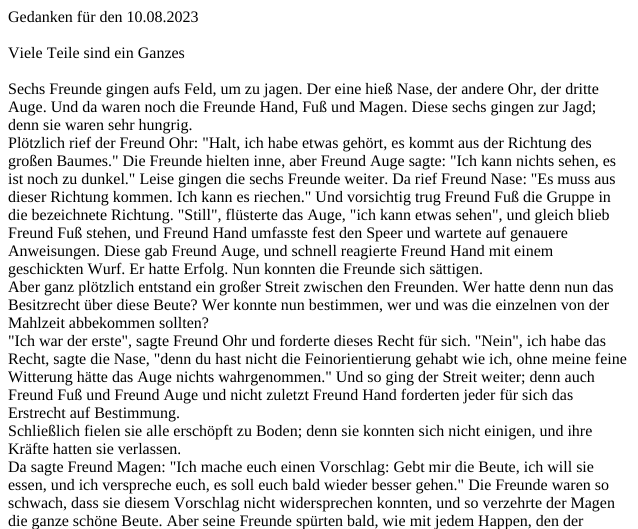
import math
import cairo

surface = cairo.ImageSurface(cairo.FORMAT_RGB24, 638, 529)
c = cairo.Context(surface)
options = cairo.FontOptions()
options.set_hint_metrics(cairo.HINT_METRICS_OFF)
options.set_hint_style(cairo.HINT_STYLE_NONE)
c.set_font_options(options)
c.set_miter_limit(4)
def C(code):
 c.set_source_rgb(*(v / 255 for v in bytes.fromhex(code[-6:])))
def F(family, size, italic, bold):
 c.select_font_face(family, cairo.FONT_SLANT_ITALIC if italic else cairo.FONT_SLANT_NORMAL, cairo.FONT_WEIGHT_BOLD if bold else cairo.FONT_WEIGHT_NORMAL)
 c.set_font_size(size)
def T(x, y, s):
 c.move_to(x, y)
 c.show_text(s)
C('ffffff')
c.paint()
F('Liberation Serif',16,0,0)
C('000000')
T(8,22,'Gedanken für den 10.08.2023')
T(8,58,'Viele Teile sind ein Ganzes')
T(8,94,'Sechs Freunde gingen aufs Feld, um zu jagen. Der eine hieß Nase, der andere Ohr, der dritte')
T(8,112,'Auge. Und da waren noch die Freunde Hand, Fuß und Magen. Diese sechs gingen zur Jagd;')
T(8,130,'denn sie waren sehr hungrig.')
T(8,148,'Plötzlich rief der Freund Ohr: "Halt, ich habe etwas gehört, es kommt aus der Richtung des')
T(8,166,'großen Baumes." Die Freunde hielten inne, aber Freund Auge sagte: "Ich kann nichts sehen, es')
T(8,184,'ist noch zu dunkel." Leise gingen die sechs Freunde weiter. Da rief Freund Nase: "Es muss aus')
T(8,202,'dieser Richtung kommen. Ich kann es riechen." Und vorsichtig trug Freund Fuß die Gruppe in')
T(8,220,'die bezeichnete Richtung. "Still", flüsterte das Auge, "ich kann etwas sehen", und gleich blieb')
T(8,238,'Freund Fuß stehen, und Freund Hand umfasste fest den Speer und wartete auf genauere')
T(8,256,'Anweisungen. Diese gab Freund Auge, und schnell reagierte Freund Hand mit einem')
T(8,274,'geschickten Wurf. Er hatte Erfolg. Nun konnten die Freunde sich sättigen.')
T(8,292,'Aber ganz plötzlich entstand ein großer Streit zwischen den Freunden. Wer hatte denn nun das')
T(8,310,'Besitzrecht über diese Beute? Wer konnte nun bestimmen, wer und was die einzelnen von der')
T(8,328,'Mahlzeit abbekommen sollten?')
T(8,346,'"Ich war der erste", sagte Freund Ohr und forderte dieses Recht für sich. "Nein", ich habe das')
T(8,364,'Recht, sagte die Nase, "denn du hast nicht die Feinorientierung gehabt wie ich, ohne meine feine')
T(8,382,'Witterung hätte das Auge nichts wahrgenommen." Und so ging der Streit weiter; denn auch')
T(8,400,'Freund Fuß und Freund Auge und nicht zuletzt Freund Hand forderten jeder für sich das')
T(8,418,'Erstrecht auf Bestimmung.')
T(8,436,'Schließlich fielen sie alle erschöpft zu Boden; denn sie konnten sich nicht einigen, und ihre')
T(8,454,'Kräfte hatten sie verlassen.')
T(8,472,'Da sagte Freund Magen: "Ich mache euch einen Vorschlag: Gebt mir die Beute, ich will sie')
T(8,490,'essen, und ich verspreche euch, es soll euch bald wieder besser gehen." Die Freunde waren so')
T(8,508,'schwach, dass sie diesem Vorschlag nicht widersprechen konnten, und so verzehrte der Magen')
T(8,526,'die ganze schöne Beute. Aber seine Freunde spürten bald, wie mit jedem Happen, den der')
surface.write_to_png('o.png')
